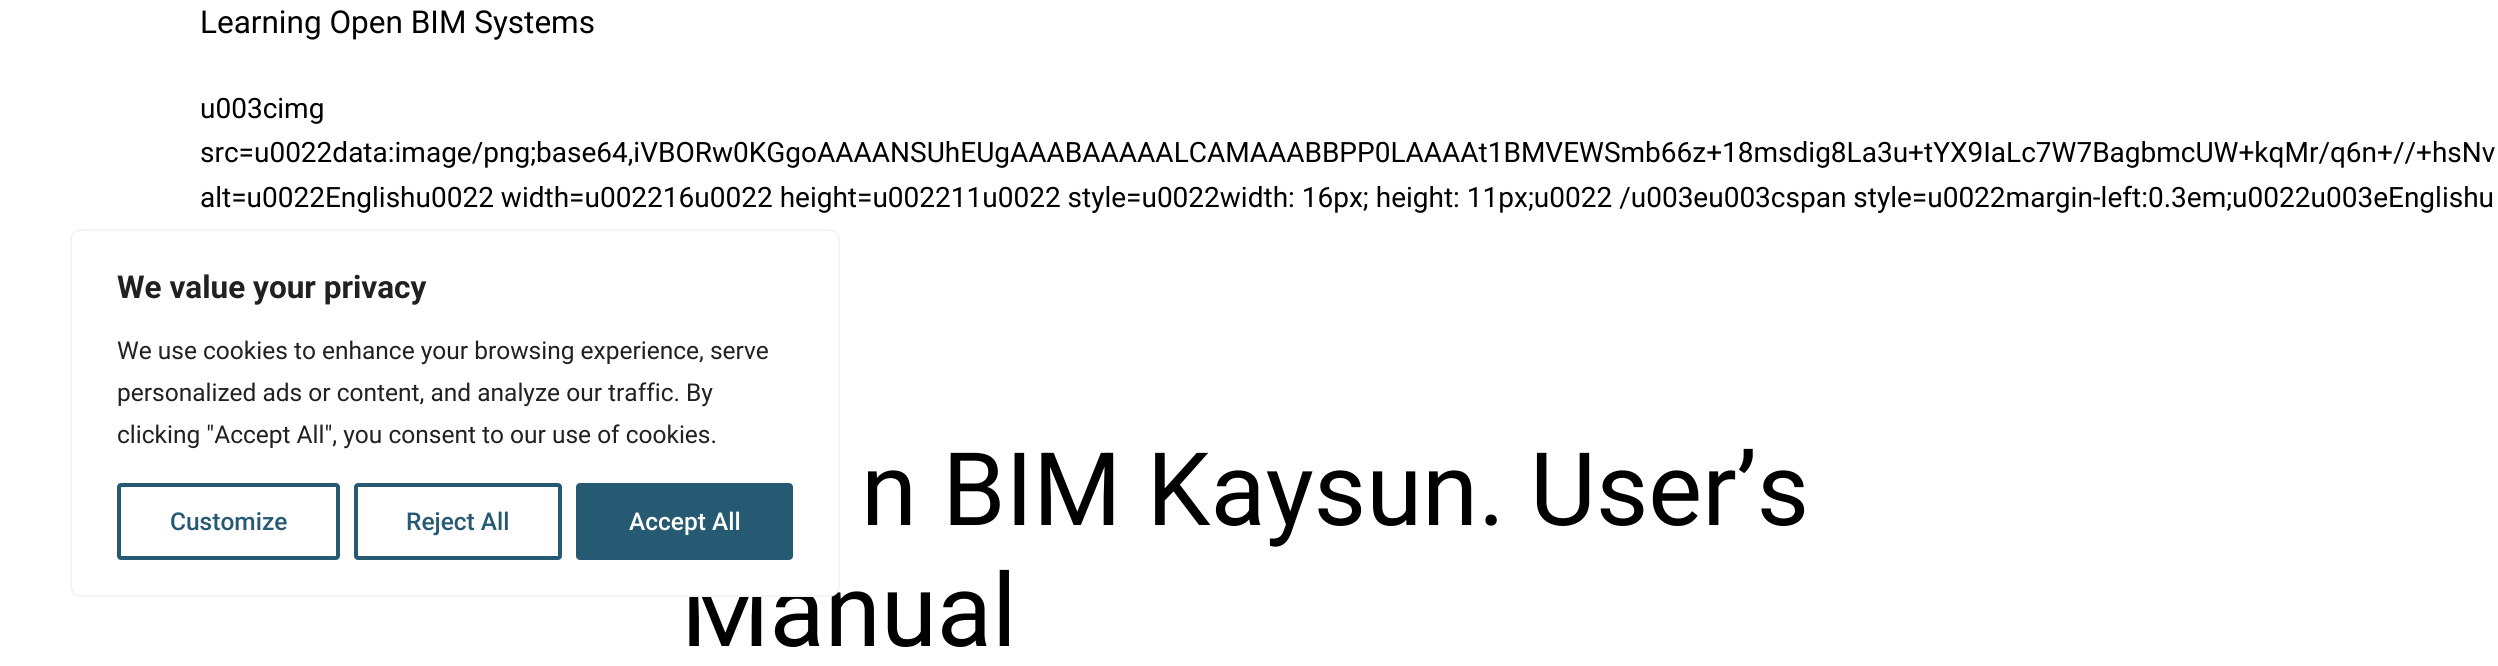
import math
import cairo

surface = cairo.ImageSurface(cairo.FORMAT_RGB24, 2498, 666)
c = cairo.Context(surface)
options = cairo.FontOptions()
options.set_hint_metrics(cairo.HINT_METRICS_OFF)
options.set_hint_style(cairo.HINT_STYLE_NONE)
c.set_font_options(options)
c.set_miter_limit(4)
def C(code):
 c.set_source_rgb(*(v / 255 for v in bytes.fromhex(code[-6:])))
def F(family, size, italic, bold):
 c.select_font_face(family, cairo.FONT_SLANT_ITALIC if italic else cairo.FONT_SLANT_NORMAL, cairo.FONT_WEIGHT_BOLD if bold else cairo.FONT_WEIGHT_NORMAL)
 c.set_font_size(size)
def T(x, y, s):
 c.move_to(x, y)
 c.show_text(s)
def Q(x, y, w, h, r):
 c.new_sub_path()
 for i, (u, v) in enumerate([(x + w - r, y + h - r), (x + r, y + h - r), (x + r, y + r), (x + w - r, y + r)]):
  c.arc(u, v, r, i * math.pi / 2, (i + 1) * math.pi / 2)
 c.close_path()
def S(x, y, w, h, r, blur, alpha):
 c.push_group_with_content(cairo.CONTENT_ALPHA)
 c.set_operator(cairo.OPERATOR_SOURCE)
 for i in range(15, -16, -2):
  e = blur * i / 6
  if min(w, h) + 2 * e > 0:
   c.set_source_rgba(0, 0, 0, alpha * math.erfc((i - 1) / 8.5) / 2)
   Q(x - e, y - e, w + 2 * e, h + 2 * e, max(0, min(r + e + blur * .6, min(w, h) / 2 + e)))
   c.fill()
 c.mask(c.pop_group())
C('ffffff')
c.paint()
F('Roboto',31.5,0,0)
C('000000')
T(200,33,'Learning Open BIM Systems')
F('Roboto',28,0,0)
T(200,118,'u003cimg')
T(200,162,'src=u0022data:image/png;base64,iVBORw0KGgoAAAANSUhEUgAAABAAAAALCAMAAABBPP0LAAAAt1BMVEWSmb66z+18msdig8La3u+tYX9IaLc7W7BagbmcUW+kqMr/q6n+//+hsNv')
T(200,207,'alt=u0022Englishu0022 width=u002216u0022 height=u002211u0022 style=u0022width: 16px; height: 11px;u0022 /u003eu003cspan style=u0022margin-left:0.3em;u0022u003eEnglishu')
F('Roboto',101.5,0,0)
T(861,525,'n BIM Kaysun. User’s')
T(681,646,'Manual')
c.save()
Q(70,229,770,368,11)
c.clip()
C('acabab')
S(70,228,770,367,11,9,.3)
c.restore()
C('ffffff')
Q(71,230,768,366,10)
c.fill_preserve()
C('f4f4f4')
c.stroke()
F('Roboto',31.5,0,1)
C('212121')
T(117,298,'We value your privacy')
F('Roboto',24.5,0,0)
T(117,359,'We use cookies to enhance your browsing experience, serve')
T(117,401,'personalized ads or content, and analyze our traffic. By')
T(117,443,'clicking "Accept All", you consent to our use of cookies.')
Q(119,485,219,73,2)
C('265972')
c.set_line_width(4)
c.stroke()
F('Roboto Medium',24.5,0,0)
T(170,530,'Customize')
Q(356,485,204,73,2)
c.stroke()
T(406,530,'Reject All')
Q(578,485,213,73,2)
c.fill_preserve()
c.stroke()
C('ffffff')
T(629,530,'Accept All')
surface.write_to_png('o.png')
